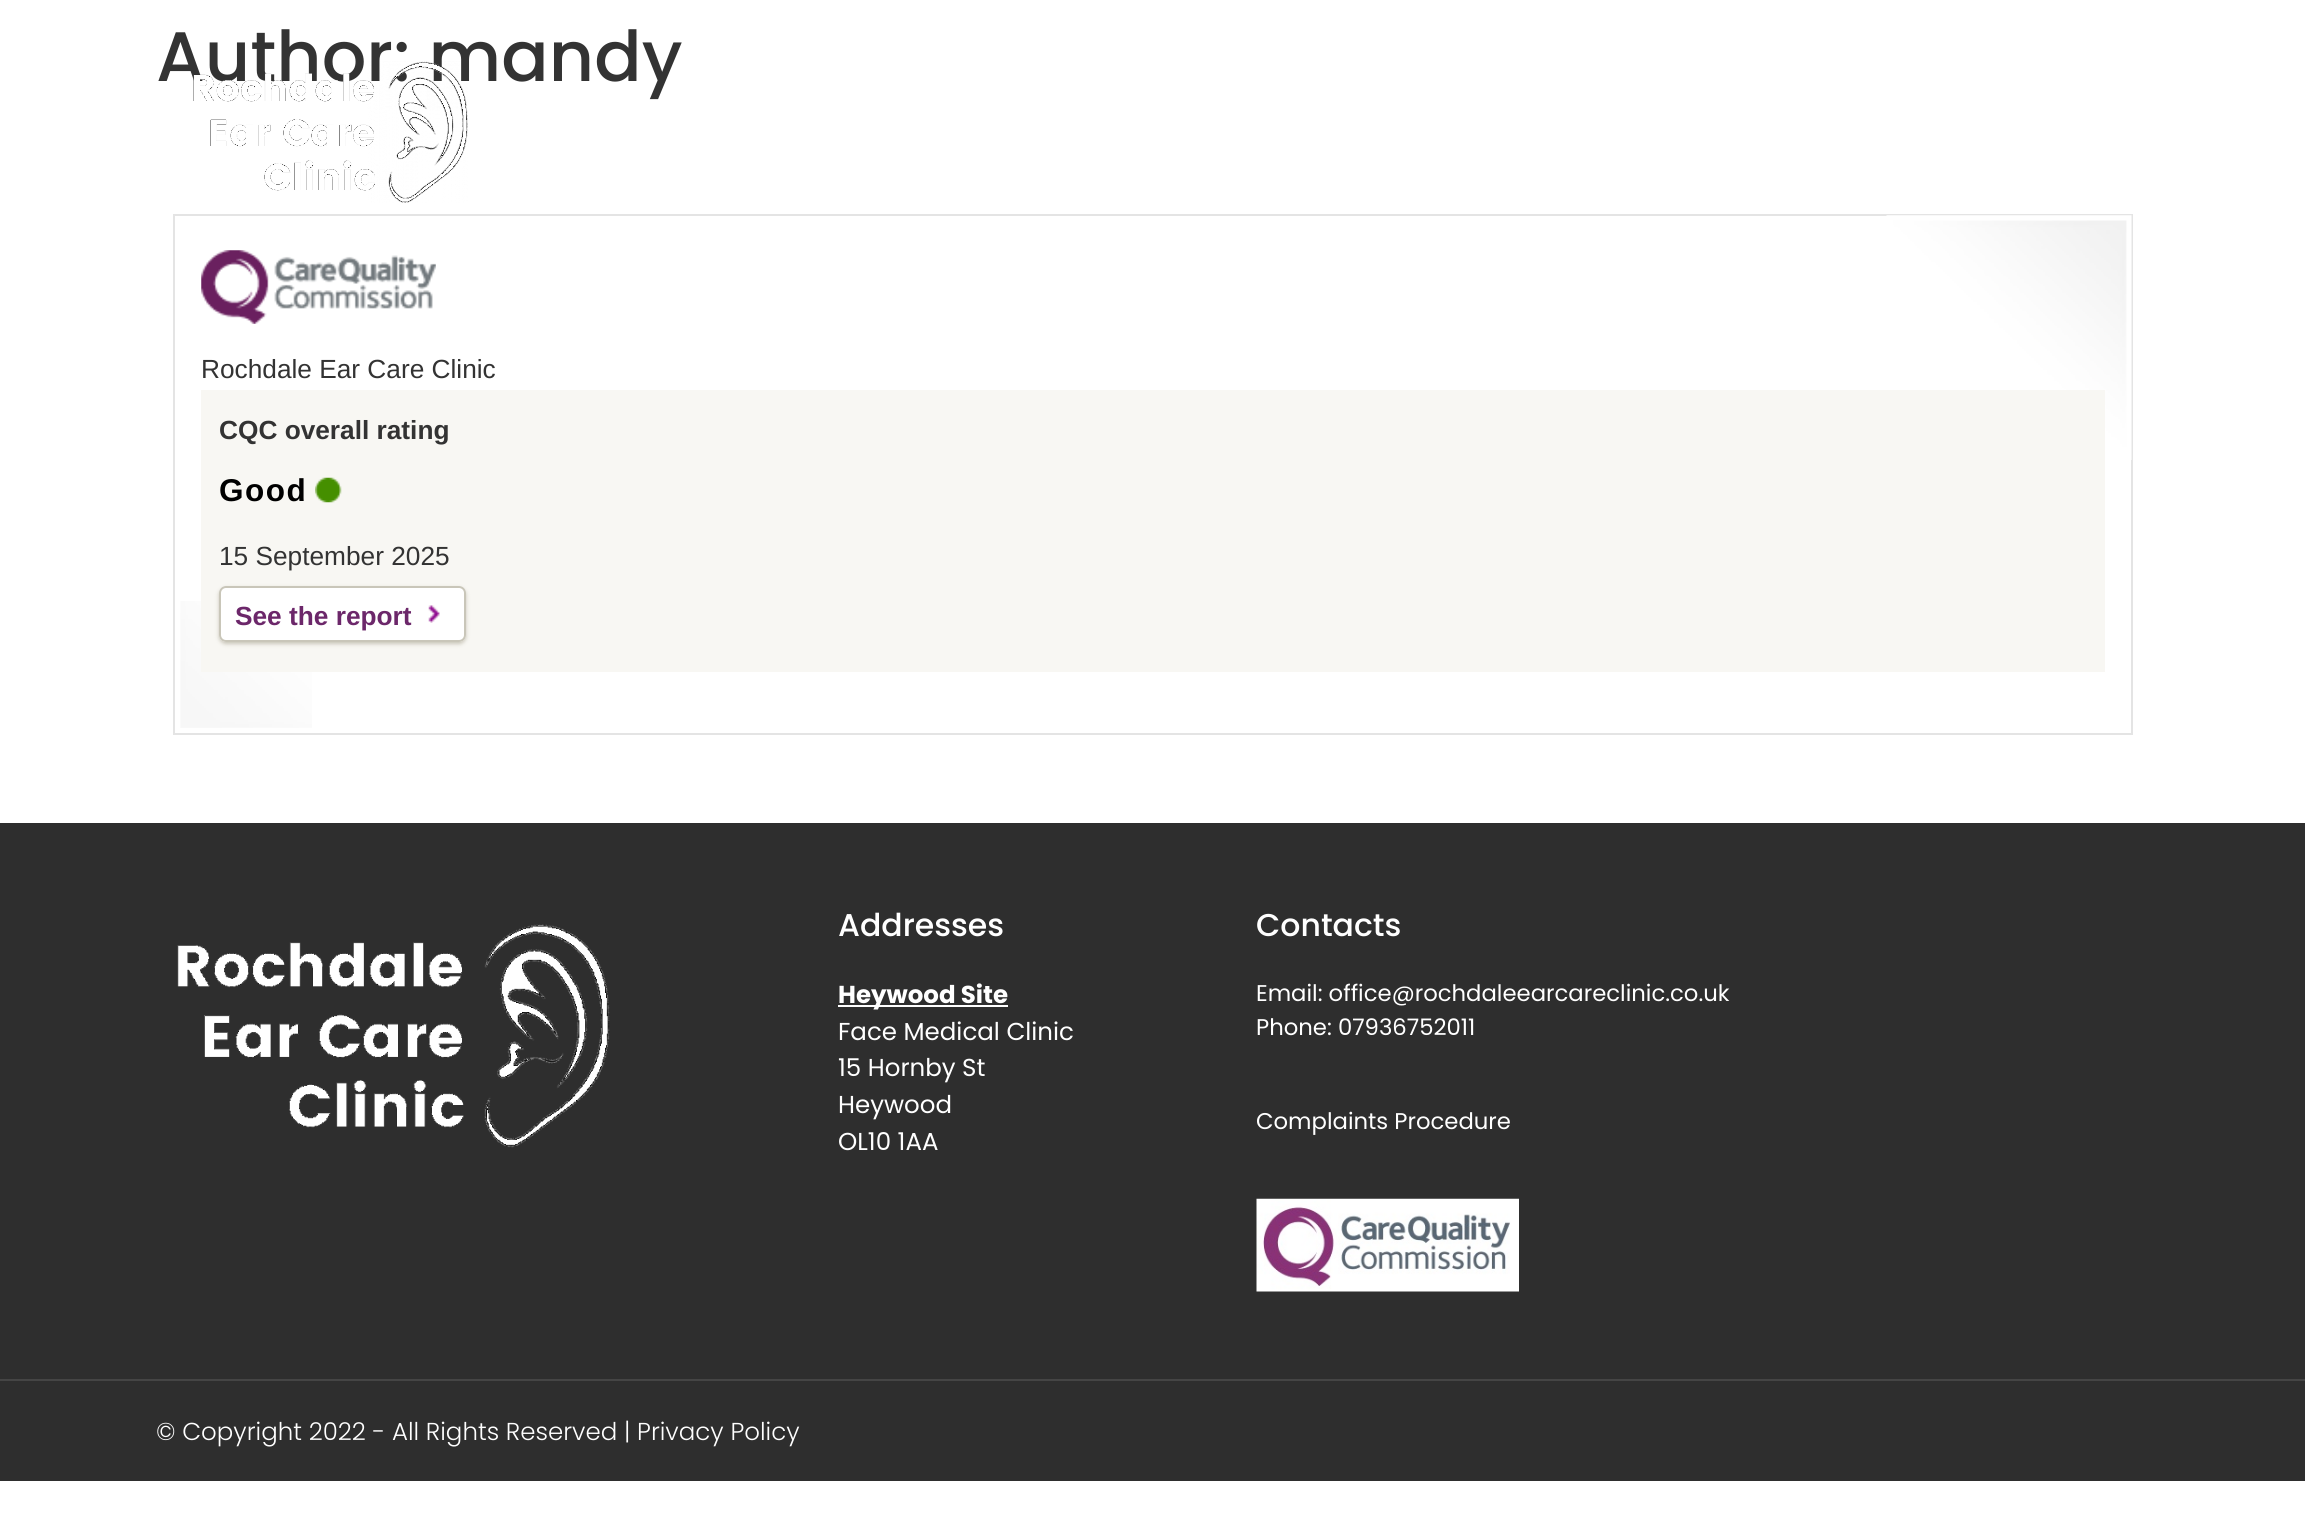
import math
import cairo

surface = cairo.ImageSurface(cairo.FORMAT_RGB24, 2305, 1523)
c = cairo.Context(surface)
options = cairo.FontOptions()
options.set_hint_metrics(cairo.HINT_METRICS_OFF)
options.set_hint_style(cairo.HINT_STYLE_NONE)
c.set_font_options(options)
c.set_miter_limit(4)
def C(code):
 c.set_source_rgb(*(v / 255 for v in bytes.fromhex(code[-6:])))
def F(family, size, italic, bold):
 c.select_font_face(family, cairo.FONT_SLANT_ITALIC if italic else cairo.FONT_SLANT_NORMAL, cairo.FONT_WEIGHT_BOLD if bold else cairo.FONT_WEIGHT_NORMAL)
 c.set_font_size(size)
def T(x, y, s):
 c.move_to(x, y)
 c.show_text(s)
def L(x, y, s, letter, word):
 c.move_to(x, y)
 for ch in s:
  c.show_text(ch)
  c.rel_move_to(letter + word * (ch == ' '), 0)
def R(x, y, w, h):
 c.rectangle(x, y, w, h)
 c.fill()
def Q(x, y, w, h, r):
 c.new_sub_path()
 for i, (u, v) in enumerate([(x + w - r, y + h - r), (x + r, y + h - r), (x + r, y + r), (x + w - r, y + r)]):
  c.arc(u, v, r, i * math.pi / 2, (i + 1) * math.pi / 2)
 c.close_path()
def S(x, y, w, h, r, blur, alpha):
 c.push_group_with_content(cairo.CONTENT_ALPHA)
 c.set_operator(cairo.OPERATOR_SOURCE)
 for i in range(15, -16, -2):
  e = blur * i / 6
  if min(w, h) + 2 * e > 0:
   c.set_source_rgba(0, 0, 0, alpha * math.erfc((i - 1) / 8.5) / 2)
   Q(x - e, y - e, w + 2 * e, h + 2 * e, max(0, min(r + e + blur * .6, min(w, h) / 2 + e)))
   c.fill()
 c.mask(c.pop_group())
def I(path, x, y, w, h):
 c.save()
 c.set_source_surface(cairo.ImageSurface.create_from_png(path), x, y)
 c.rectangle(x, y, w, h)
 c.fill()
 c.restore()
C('ffffff')
c.paint()
F('Poppins Medium',70,0,0)
C('333333')
T(156,81,'Author: mandy')
I('1.png',193,61,275,142)
I('2.png',180,601,132,127)
c.rectangle(174,215,1958,519)
C('e4e4e4')
c.stroke()
I('3.png',1886,215,246,245)
I('4.png',201,250,235,74)
F('Liberation Sans',26.25,0,0)
C('333333')
T(201,378,'Rochdale Ear Care Clinic')
C('f8f7f3')
R(201,390,1904,282)
F('Liberation Sans',26.25,0,1)
C('333333')
T(219,439,'CQC overall rating')
F('Liberation Sans',31.5,0,1)
C('000000')
L(219,501,'Good',1.5,0)
I('5.png',315,477,27,26)
F('Liberation Sans',26.25,0,0)
C('333333')
T(219,565,'15 September 2025')
C('c9c6b9')
S(219,588,247,56,7,2,1)
C('ffffff')
Q(219,586,247,56,7)
c.fill()
I('6.png',428,605,12,18)
Q(220,587,245,54,6)
C('c9c6b9')
c.stroke()
F('Liberation Sans',26.25,0,1)
C('6c276a')
T(235,625,'See the report')
C('2e2e2e')
R(0,823,2305,556)
I('7.png',177,924,433,224)
F('Poppins Medium',31.5,0,0)
C('ffffff')
T(838,936,'Addresses')
R(838,1005,170,2)
F('Poppins',24.5,0,1)
T(838,1003,'Heywood Site')
F('Poppins',24.5,0,0)
T(838,1040,'Face Medical Clinic')
T(838,1076,'15 Hornby St')
T(838,1113,'Heywood')
T(838,1150,'OL10 1AA')
F('Poppins Medium',31.5,0,0)
T(1256,936,'Contacts')
F('Poppins',22.75,0,0)
T(1256,1001,'Email: office@rochdaleearcareclinic.co.uk')
T(1256,1035,'Phone: 07936752011')
T(1256,1129,'Complaints Procedure')
I('8.png',1256,1198,263,94)
C('2e2e2e')
R(0,1381,2305,100)
C('454545')
R(0,1379,2305,2)
F('Poppins Light',24.5,0,0)
C('ffffff')
T(156,1440,'© Copyright 2022 - All Rights Reserved | Privacy Policy')
surface.write_to_png('o.png')
